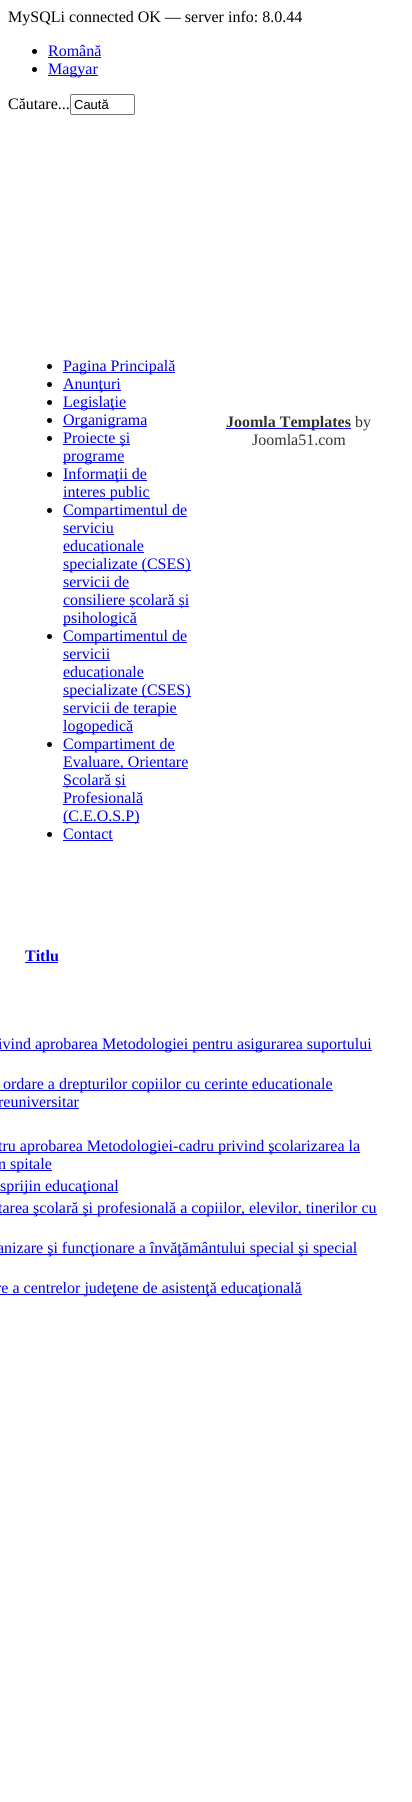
import math
import cairo

surface = cairo.ImageSurface(cairo.FORMAT_RGB24, 412, 1802)
c = cairo.Context(surface)
options = cairo.FontOptions()
options.set_hint_metrics(cairo.HINT_METRICS_OFF)
options.set_hint_style(cairo.HINT_STYLE_NONE)
c.set_font_options(options)
c.set_miter_limit(4)
def C(code):
 c.set_source_rgb(*(v / 255 for v in bytes.fromhex(code[-6:])))
def F(family, size, italic, bold):
 c.select_font_face(family, cairo.FONT_SLANT_ITALIC if italic else cairo.FONT_SLANT_NORMAL, cairo.FONT_WEIGHT_BOLD if bold else cairo.FONT_WEIGHT_NORMAL)
 c.set_font_size(size)
def T(x, y, s):
 c.move_to(x, y)
 c.show_text(s)
def R(x, y, w, h):
 c.rectangle(x, y, w, h)
 c.fill()
def Q(x, y, w, h, r):
 c.new_sub_path()
 for i, (u, v) in enumerate([(x + w - r, y + h - r), (x + r, y + h - r), (x + r, y + r), (x + w - r, y + r)]):
  c.arc(u, v, r, i * math.pi / 2, (i + 1) * math.pi / 2)
 c.close_path()
C('ffffff')
c.paint()
F('Liberation Serif',16,0,0)
C('000000')
T(8,22,'MySQLi connected OK — server info: 8.0.44')
c.new_path()
c.arc(34.5,51.5,2.5,0,2 * math.pi)
c.fill()
C('0000ee')
T(48,56,'Română')
R(48,57,53,1)
C('000000')
c.new_path()
c.arc(34.5,69.5,2.5,0,2 * math.pi)
c.fill()
C('0000ee')
R(48,75,50,1)
T(48,74,'Magyar')
C('000000')
T(8,109,'Căutare...')
Q(70.5,94.5,64,20,1.5)
C('767676')
c.set_line_width(1)
c.stroke()
F('Liberation Sans',13,0,0)
C('000000')
T(74,109,'Caută')
c.new_path()
c.arc(49.5,366.5,2.5,0,2 * math.pi)
c.fill()
C('0000ee')
R(63,372,112,1)
F('Liberation Serif',16,0,0)
T(63,371,'Pagina Principală')
C('000000')
c.new_path()
c.arc(49.5,384.5,2.5,0,2 * math.pi)
c.fill()
C('0000ee')
R(63,390,58,1)
T(63,389,'Anunţuri')
C('000000')
c.new_path()
c.arc(49.5,402.5,2.5,0,2 * math.pi)
c.fill()
C('0000ee')
R(63,408,63,1)
T(63,407,'Legislaţie')
C('000000')
c.new_path()
c.arc(49.5,420.5,2.5,0,2 * math.pi)
c.fill()
C('0000ee')
R(63,426,84,1)
T(63,425,'Organigrama')
C('000000')
c.new_path()
c.arc(49.5,438.5,2.5,0,2 * math.pi)
c.fill()
C('0000ee')
R(63,444,67,1)
T(63,443,'Proiecte şi')
R(63,462,61,1)
T(63,461,'programe')
C('000000')
c.new_path()
c.arc(49.5,474.5,2.5,0,2 * math.pi)
c.fill()
C('0000ee')
R(63,480,84,1)
T(63,479,'Informaţii de')
R(63,498,87,1)
T(63,497,'interes public')
C('000000')
c.new_path()
c.arc(49.5,510.5,2.5,0,2 * math.pi)
c.fill()
C('0000ee')
R(63,516,124,1)
T(63,515,'Compartimentul de')
T(63,533,'serviciu')
R(63,534,51,1)
R(63,552,81,1)
T(63,551,'educaționale')
R(63,570,128,1)
T(63,569,'specializate (CSES)')
T(63,587,'servicii de')
R(63,588,66,1)
R(63,606,126,1)
T(63,605,'consiliere școlară și')
R(63,624,74,1)
T(63,623,'psihologică')
C('000000')
c.new_path()
c.arc(49.5,636.5,2.5,0,2 * math.pi)
c.fill()
C('0000ee')
R(63,642,124,1)
T(63,641,'Compartimentul de')
T(63,659,'servicii')
R(63,660,47,1)
R(63,678,81,1)
T(63,677,'educaționale')
R(63,696,128,1)
T(63,695,'specializate (CSES)')
R(63,714,114,1)
T(63,713,'servicii de terapie')
R(63,732,70,1)
T(63,731,'logopedică')
C('000000')
c.new_path()
c.arc(49.5,744.5,2.5,0,2 * math.pi)
c.fill()
C('0000ee')
R(63,750,112,1)
T(63,749,'Compartiment de')
R(63,768,125,1)
T(63,767,'Evaluare, Orientare')
R(63,786,63,1)
T(63,785,'Școlară și')
T(63,803,'Profesională')
R(63,804,80,1)
R(63,822,76,1)
T(63,821,'(C.E.O.S.P)')
C('000000')
c.new_path()
c.arc(49.5,834.5,2.5,0,2 * math.pi)
c.fill()
C('0000ee')
T(63,839,'Contact')
R(63,840,50,1)
F('Liberation Serif',16,0,1)
T(25,961,'Titlu')
R(25,962,33,1)
R(0,1050,372,1)
F('Liberation Serif',16,0,0)
T(-2,1049,'ivind aprobarea Metodologiei pentru asigurarea suportului')
R(0,1090,333,1)
T(3,1089,'ordare a drepturilor copiilor cu cerinte educationale')
T(-2,1107,'reuniversitar')
R(0,1108,79,1)
R(0,1152,360,1)
T(-2,1151,'tru aprobarea Metodologiei-cadru privind şcolarizarea la')
R(0,1170,52,1)
T(-2,1169,'n spitale')
R(0,1192,118,1)
T(0,1191,'sprijin educaţional')
R(0,1214,377,1)
T(-2,1213,'tarea şcolară şi profesională a copiilor, elevilor, tinerilor cu')
R(0,1254,357,1)
T(-3,1253,'anizare şi funcţionare a învăţământului special şi special')
R(0,1294,302,1)
T(-4,1293,'re a centrelor judeţene de asistenţă educaţională')
R(226,428,125,1)
F('Liberation Serif',16,0,1)
C('313131')
T(226,427,'Joomla Templates')
F('Liberation Serif',16,0,0)
T(355,427,'by')
T(252,445,'Joomla51.com')
surface.write_to_png('o.png')
